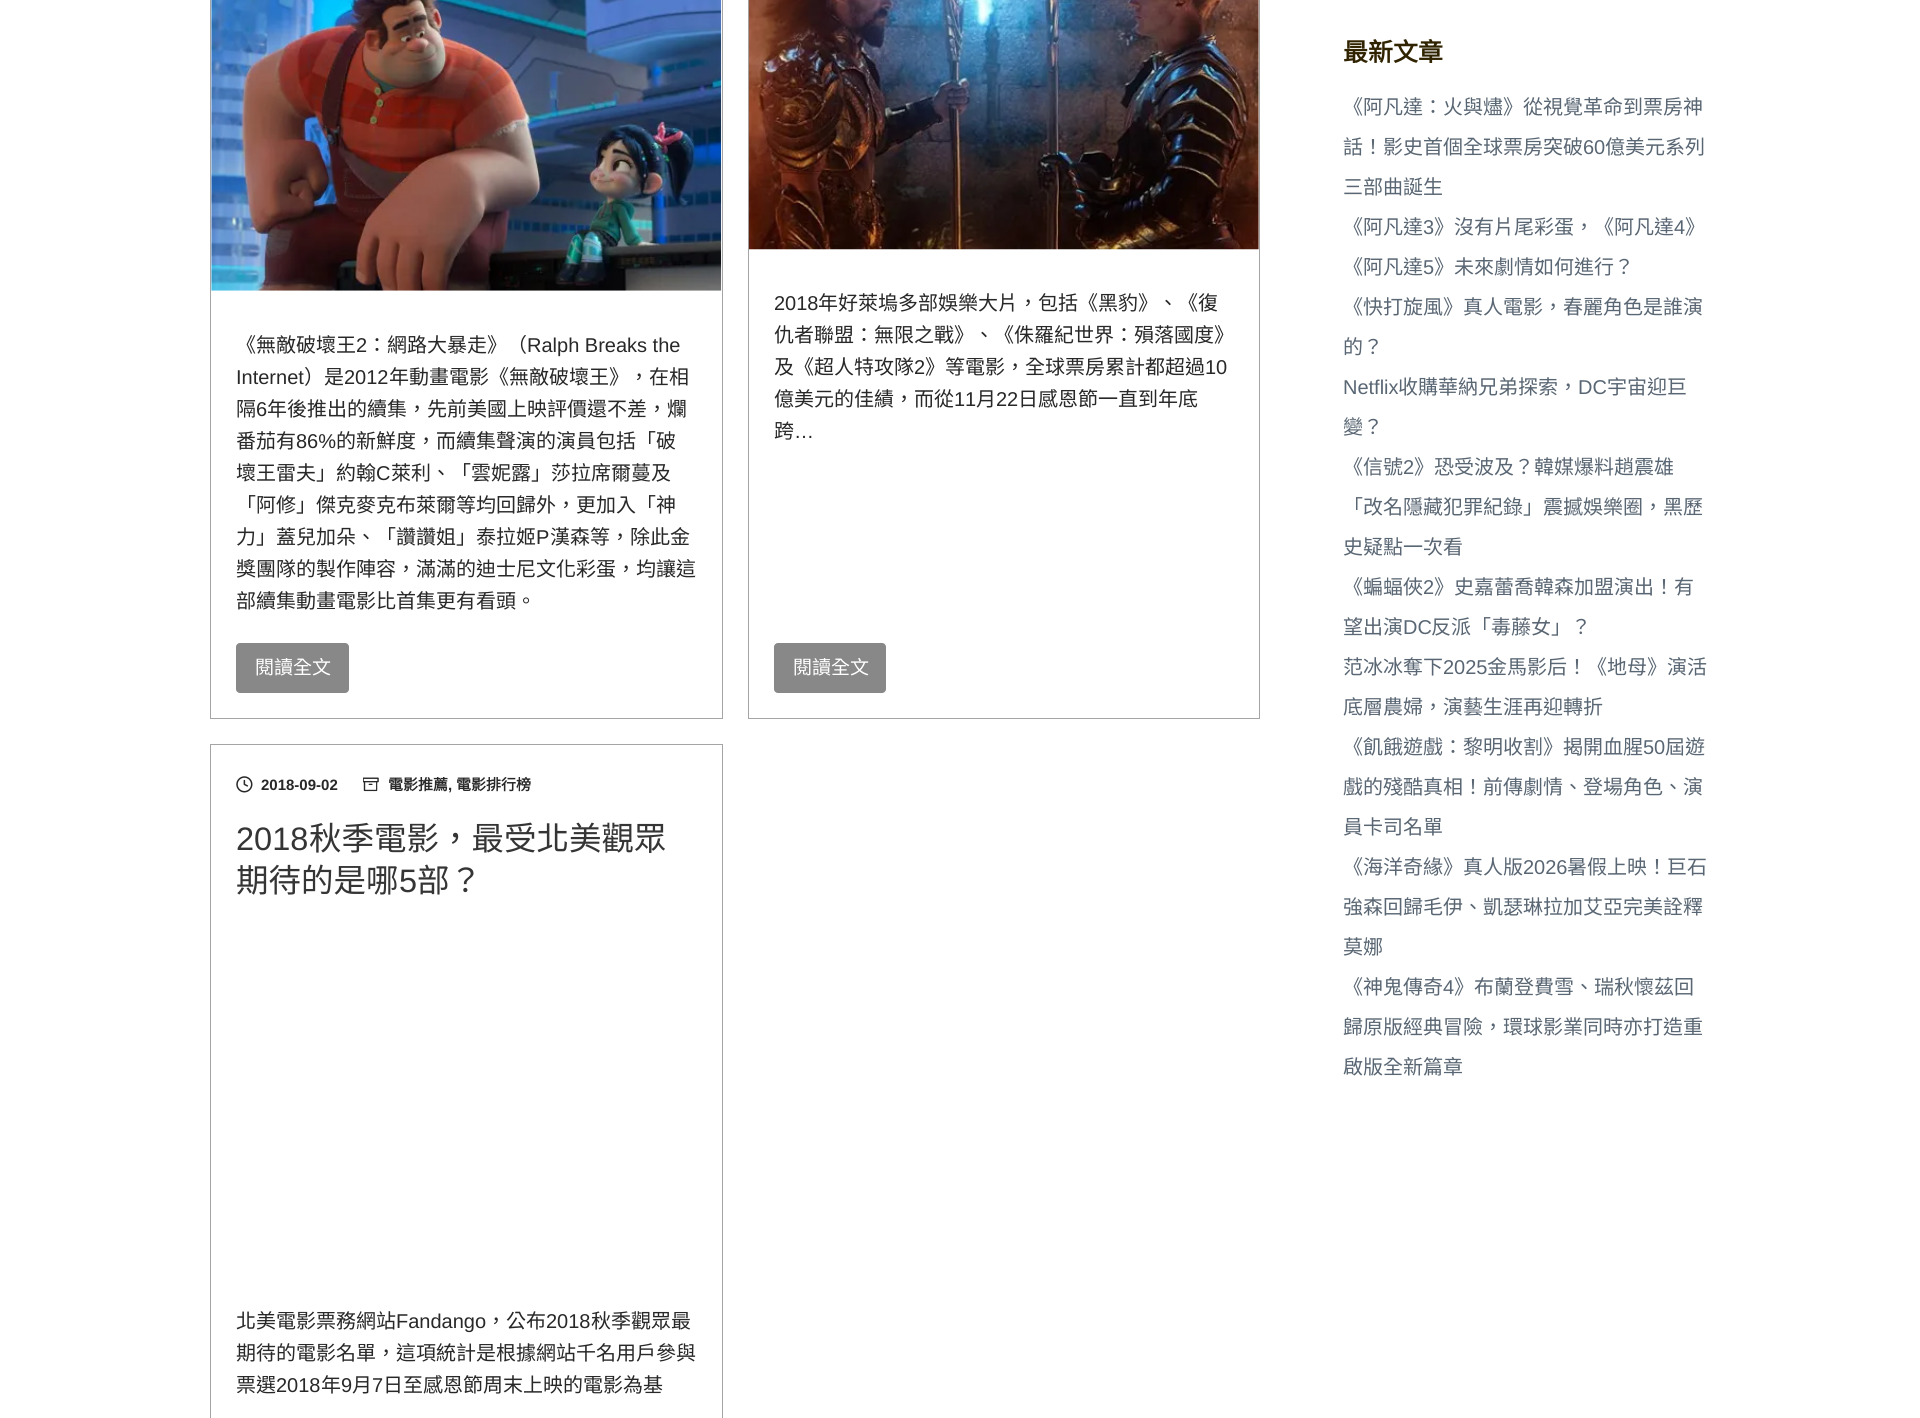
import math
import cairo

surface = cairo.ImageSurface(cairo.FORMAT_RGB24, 1920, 1418)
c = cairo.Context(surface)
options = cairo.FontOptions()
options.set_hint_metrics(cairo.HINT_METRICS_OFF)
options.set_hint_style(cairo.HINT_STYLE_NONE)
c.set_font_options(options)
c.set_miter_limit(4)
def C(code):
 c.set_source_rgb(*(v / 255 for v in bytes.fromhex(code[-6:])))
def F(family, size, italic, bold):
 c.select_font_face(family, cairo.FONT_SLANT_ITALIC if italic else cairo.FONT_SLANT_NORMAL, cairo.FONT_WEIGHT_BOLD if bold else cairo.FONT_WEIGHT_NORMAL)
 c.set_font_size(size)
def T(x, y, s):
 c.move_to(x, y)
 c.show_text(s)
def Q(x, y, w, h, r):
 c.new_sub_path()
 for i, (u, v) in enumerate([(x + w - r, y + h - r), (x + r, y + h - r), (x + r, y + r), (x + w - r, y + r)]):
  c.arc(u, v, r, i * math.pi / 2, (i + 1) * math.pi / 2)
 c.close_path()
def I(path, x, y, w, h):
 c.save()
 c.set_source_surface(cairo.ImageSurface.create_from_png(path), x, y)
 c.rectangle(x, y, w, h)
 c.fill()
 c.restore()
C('ffffff')
c.paint()
c.rectangle(210.5,-.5,512,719)
C('a5a5a5')
c.set_line_width(1)
c.stroke()
I('1.png',211,0,511,291)
F('Noto Sans CJK TC',20,0,0)
C('282828')
T(236,352,'《無敵破壞王')
F('Liberation Sans',20,0,0)
T(356,352,'2')
F('Noto Sans CJK TC',20,0,0)
T(367,352,'：網路大暴走》（')
F('Liberation Sans',20,0,0)
T(527,352,'Ralph Breaks the')
T(236,384,'Internet')
F('Noto Sans CJK TC',20,0,0)
T(304,384,'）是')
F('Liberation Sans',20,0,0)
T(344,384,'2012')
F('Noto Sans CJK TC',20,0,0)
T(389,384,'年動畫電影《無敵破壞王》，在相')
T(236,416,'隔')
F('Liberation Sans',20,0,0)
T(256,416,'6')
F('Noto Sans CJK TC',20,0,0)
T(267,416,'年後推出的續集，先前美國上映評價還不差，爛')
T(236,448,'番茄有')
F('Liberation Sans',20,0,0)
T(296,448,'86%')
F('Noto Sans CJK TC',20,0,0)
T(336,448,'的新鮮度，而續集聲演的演員包括「破')
T(236,480,'壞王雷夫」約翰')
F('Liberation Sans',20,0,0)
T(376,480,'C')
F('Noto Sans CJK TC',20,0,0)
T(391,480,'萊利、「雲妮露」莎拉席爾蔓及')
T(236,512,'「阿修」傑克麥克布萊爾等均回歸外，更加入「神')
T(236,544,'力」蓋兒加朵、「讚讚姐」泰拉姬')
F('Liberation Sans',20,0,0)
T(536,544,'P')
F('Noto Sans CJK TC',20,0,0)
T(550,544,'漢森等，除此金')
T(236,576,'獎團隊的製作陣容，滿滿的迪士尼文化彩蛋，均讓這')
T(236,608,'部續集動畫電影比首集更有看頭。')
C('898888')
Q(236,643,113,50,4)
c.fill()
F('Noto Sans CJK TC',19,0,0)
C('ffffff')
T(255,674,'閱讀全文')
c.rectangle(748.5,-.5,511,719)
C('a5a5a5')
c.stroke()
I('2.png',748,0,511,250)
F('Liberation Sans',20,0,0)
C('282828')
T(774,310,'2018')
F('Noto Sans CJK TC',20,0,0)
T(818,310,'年好萊塢多部娛樂大片，包括《黑豹》、《復')
T(774,342,'仇者聯盟：無限之戰》、《侏羅紀世界：殞落國度》')
T(774,374,'及《超人特攻隊')
F('Liberation Sans',20,0,0)
T(914,374,'2')
F('Noto Sans CJK TC',20,0,0)
T(925,374,'》等電影，全球票房累計都超過')
F('Liberation Sans',20,0,0)
T(1205,374,'10')
F('Noto Sans CJK TC',20,0,0)
T(774,406,'億美元的佳績，而從')
F('Liberation Sans',20,0,0)
T(954,406,'11')
F('Noto Sans CJK TC',20,0,0)
T(976,406,'月')
F('Liberation Sans',20,0,0)
T(996,406,'22')
F('Noto Sans CJK TC',20,0,0)
T(1018,406,'日感恩節一直到年底')
T(774,438,'跨')
F('Liberation Sans',20,0,0)
T(794,438,'…')
C('898888')
Q(774,643,112,50,4)
c.fill()
F('Noto Sans CJK TC',19,0,0)
C('ffffff')
T(793,674,'閱讀全文')
c.rectangle(210.5,744.5,512,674)
C('a5a5a5')
c.stroke()
I('3.png',236,776,17,17)
F('Liberation Sans',15,0,1)
C('282828')
T(261,790,'2018-09-02')
I('4.png',363,777,16,15)
F('Noto Sans CJK TC',15,0,1)
T(388,790,'電影推薦')
F('Liberation Sans',15,0,1)
T(448,790,',')
F('Noto Sans CJK TC',15,0,1)
T(456,790,'電影排行榜')
F('Liberation Sans',32.5,0,0)
C('353535')
T(236,850,'2018')
F('Noto Sans CJK TC',32.5,0,0)
T(309,850,'秋季電影，最受北美觀眾')
T(236,892,'期待的是哪')
F('Liberation Sans',32.5,0,0)
T(399,892,'5')
F('Noto Sans CJK TC',32.5,0,0)
T(417,892,'部？')
F('Noto Sans CJK TC',20,0,0)
C('282828')
T(236,1328,'北美電影票務網站')
F('Liberation Sans',20,0,0)
T(396,1328,'Fandango')
F('Noto Sans CJK TC',20,0,0)
T(486,1328,'，公布')
F('Liberation Sans',20,0,0)
T(546,1328,'2018')
F('Noto Sans CJK TC',20,0,0)
T(591,1328,'秋季觀眾最')
T(236,1360,'期待的電影名單，這項統計是根據網站千名用戶參與')
T(236,1392,'票選')
F('Liberation Sans',20,0,0)
T(276,1392,'2018')
F('Noto Sans CJK TC',20,0,0)
T(321,1392,'年')
F('Liberation Sans',20,0,0)
T(341,1392,'9')
F('Noto Sans CJK TC',20,0,0)
T(352,1392,'月')
F('Liberation Sans',20,0,0)
T(372,1392,'7')
F('Noto Sans CJK TC',20,0,0)
T(383,1392,'日至感恩節周末上映的電影為基')
F('Noto Sans CJK TC',25,0,1)
C('302300')
T(1343,61,'最新文章')
F('Noto Sans CJK TC',20,0,0)
C('596673')
T(1343,114,'《阿凡達：火與燼》從視覺革命到票房神')
T(1343,154,'話！影史首個全球票房突破')
F('Liberation Sans',20,0,0)
T(1583,154,'60')
F('Noto Sans CJK TC',20,0,0)
T(1605,154,'億美元系列')
T(1343,194,'三部曲誕生')
T(1343,234,'《阿凡達')
F('Liberation Sans',20,0,0)
T(1423,234,'3')
F('Noto Sans CJK TC',20,0,0)
T(1434,234,'》沒有片尾彩蛋，《阿凡達')
F('Liberation Sans',20,0,0)
T(1674,234,'4')
F('Noto Sans CJK TC',20,0,0)
T(1685,234,'》')
T(1343,274,'《阿凡達')
F('Liberation Sans',20,0,0)
T(1423,274,'5')
F('Noto Sans CJK TC',20,0,0)
T(1434,274,'》未來劇情如何進行？')
T(1343,314,'《快打旋風》真人電影，春麗角色是誰演')
T(1343,354,'的？')
F('Liberation Sans',20,0,0)
T(1343,394,'Netflix')
F('Noto Sans CJK TC',20,0,0)
T(1398,394,'收購華納兄弟探索，')
F('Liberation Sans',20,0,0)
T(1578,394,'DC')
F('Noto Sans CJK TC',20,0,0)
T(1607,394,'宇宙迎巨')
T(1343,434,'變？')
T(1343,474,'《信號')
F('Liberation Sans',20,0,0)
T(1403,474,'2')
F('Noto Sans CJK TC',20,0,0)
T(1414,474,'》恐受波及？韓媒爆料趙震雄')
T(1343,514,'「改名隱藏犯罪紀錄」震撼娛樂圈，黑歷')
T(1343,554,'史疑點一次看')
T(1343,594,'《蝙蝠俠')
F('Liberation Sans',20,0,0)
T(1423,594,'2')
F('Noto Sans CJK TC',20,0,0)
T(1434,594,'》史嘉蕾喬韓森加盟演出！有')
T(1343,634,'望出演')
F('Liberation Sans',20,0,0)
T(1403,634,'DC')
F('Noto Sans CJK TC',20,0,0)
T(1431,634,'反派「毒藤女」？')
T(1343,674,'范冰冰奪下')
F('Liberation Sans',20,0,0)
T(1443,674,'2025')
F('Noto Sans CJK TC',20,0,0)
T(1487,674,'金馬影后！《地母》演活')
T(1343,714,'底層農婦，演藝生涯再迎轉折')
T(1343,754,'《飢餓遊戲：黎明收割》揭開血腥')
F('Liberation Sans',20,0,0)
T(1643,754,'50')
F('Noto Sans CJK TC',20,0,0)
T(1665,754,'屆遊')
T(1343,794,'戲的殘酷真相！前傳劇情、登場角色、演')
T(1343,834,'員卡司名單')
T(1343,874,'《海洋奇緣》真人版')
F('Liberation Sans',20,0,0)
T(1523,874,'2026')
F('Noto Sans CJK TC',20,0,0)
T(1567,874,'暑假上映！巨石')
T(1343,914,'強森回歸毛伊、凱瑟琳拉加艾亞完美詮釋')
T(1343,954,'莫娜')
T(1343,994,'《神鬼傳奇')
F('Liberation Sans',20,0,0)
T(1443,994,'4')
F('Noto Sans CJK TC',20,0,0)
T(1454,994,'》布蘭登費雪、瑞秋懷茲回')
T(1343,1034,'歸原版經典冒險，環球影業同時亦打造重')
T(1343,1074,'啟版全新篇章')
surface.write_to_png('o.png')
